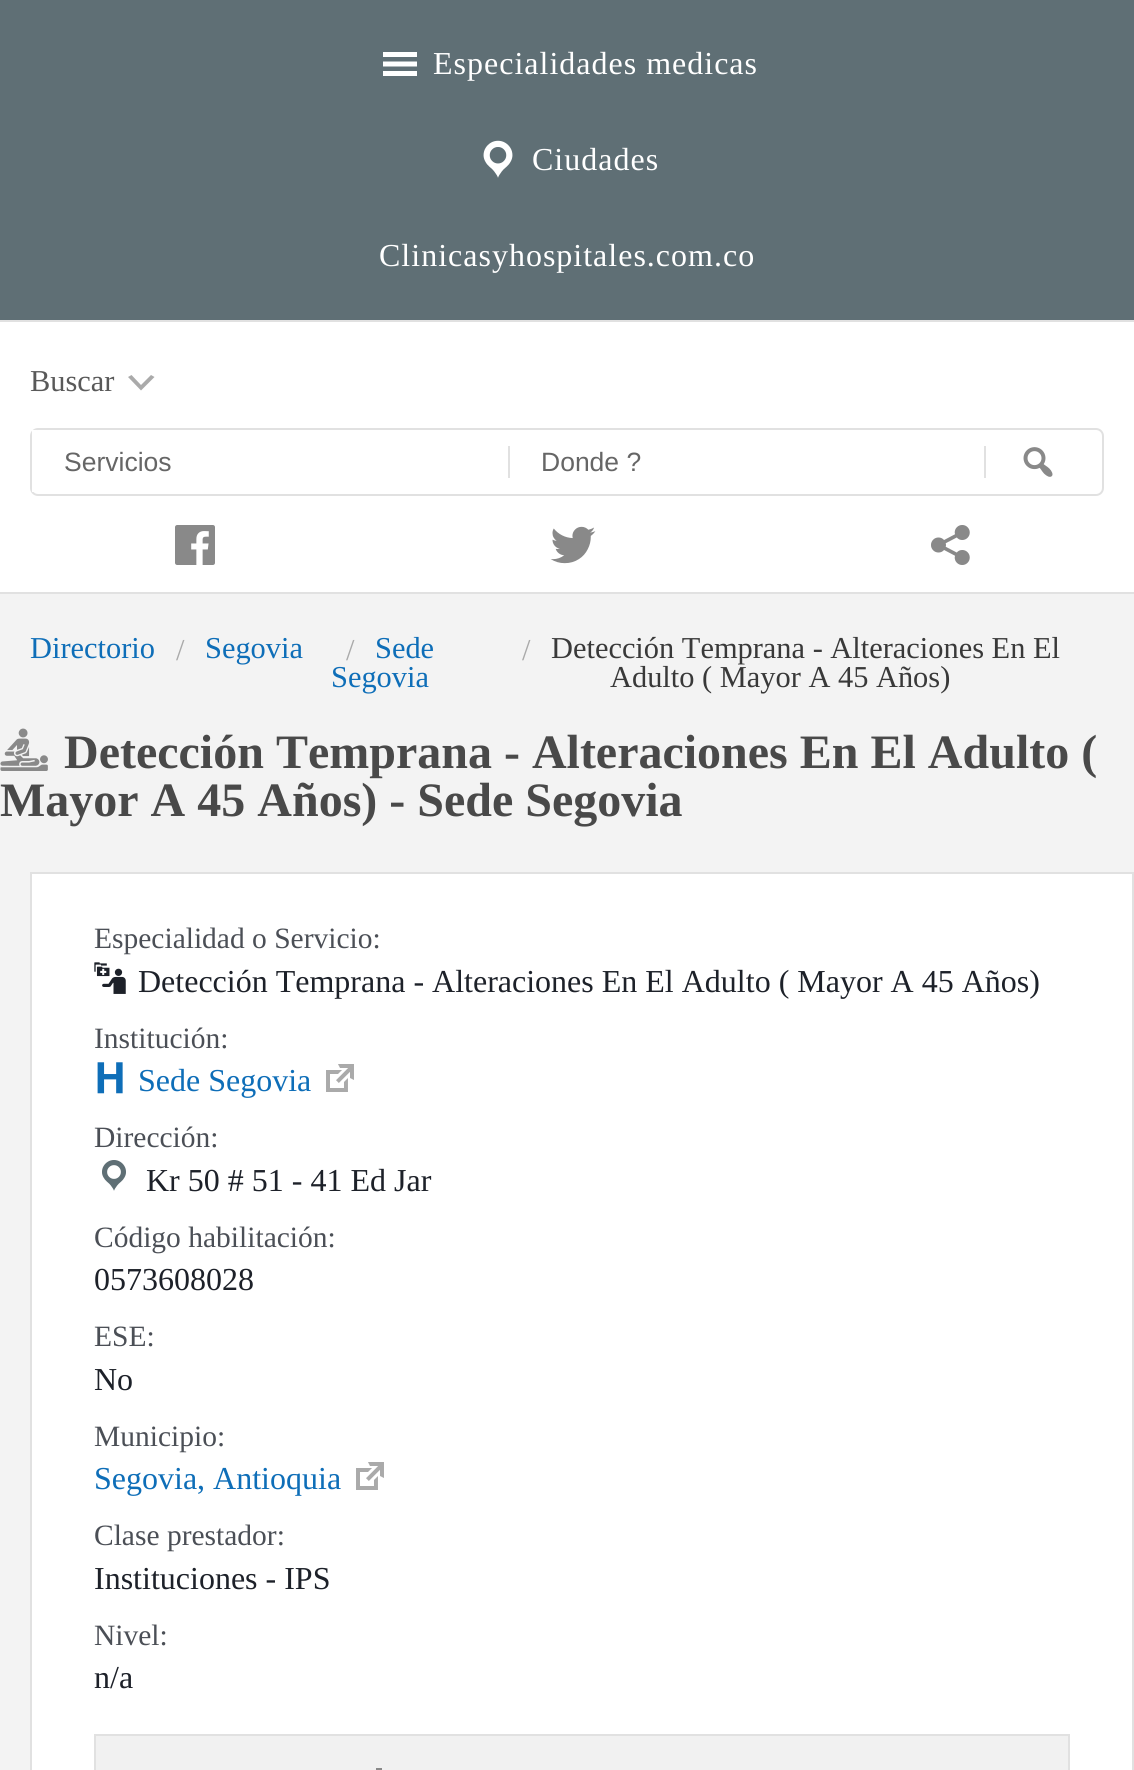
import math
import cairo

surface = cairo.ImageSurface(cairo.FORMAT_RGB24, 1134, 1770)
c = cairo.Context(surface)
options = cairo.FontOptions()
options.set_hint_metrics(cairo.HINT_METRICS_OFF)
options.set_hint_style(cairo.HINT_STYLE_NONE)
c.set_font_options(options)
c.set_miter_limit(4)
def C(code):
 c.set_source_rgb(*(v / 255 for v in bytes.fromhex(code[-6:])))
def F(family, size, italic, bold):
 c.select_font_face(family, cairo.FONT_SLANT_ITALIC if italic else cairo.FONT_SLANT_NORMAL, cairo.FONT_WEIGHT_BOLD if bold else cairo.FONT_WEIGHT_NORMAL)
 c.set_font_size(size)
def T(x, y, s):
 c.move_to(x, y)
 c.show_text(s)
def L(x, y, s, letter, word):
 c.move_to(x, y)
 for ch in s:
  c.show_text(ch)
  c.rel_move_to(letter + word * (ch == ' '), 0)
def R(x, y, w, h):
 c.rectangle(x, y, w, h)
 c.fill()
def Q(x, y, w, h, r):
 c.new_sub_path()
 for i, (u, v) in enumerate([(x + w - r, y + h - r), (x + r, y + h - r), (x + r, y + r), (x + w - r, y + r)]):
  c.arc(u, v, r, i * math.pi / 2, (i + 1) * math.pi / 2)
 c.close_path()
def I(path, x, y, w, h):
 c.save()
 c.set_source_surface(cairo.ImageSurface.create_from_png(path), x, y)
 c.rectangle(x, y, w, h)
 c.fill()
 c.restore()
C('f3f3f3')
c.paint()
C('5f6f75')
R(0,0,1134,320)
C('ffffff')
c.new_path()
c.move_to(383,76)
c.line_to(417,76)
c.line_to(417,71)
c.line_to(383,71)
c.close_path()
c.move_to(383,52)
c.line_to(383,57)
c.line_to(417,57)
c.line_to(417,52)
c.close_path()
c.move_to(383,66.5)
c.line_to(417,66.5)
c.line_to(417,61.5)
c.line_to(383,61.5)
c.close_path()
c.fill()
F('Liberation Serif',32,0,0)
L(433,74,'Especialidades medicas',1,0)
I('1.png',483,140,30,38)
L(532,170,'Ciudades',1,0)
L(379,266,'Clinicasyhospitales.com.co',1,0)
R(0,322,1134,270)
C('e1e1e1')
R(0,320,1134,2)
R(0,592,1134,2)
F('Liberation Serif',30.4,0,0)
C('595959')
T(30,391,'Buscar')
C('aaaaaa')
c.new_path()
c.move_to(131.5,375)
c.line_to(141,385)
c.line_to(151,375)
c.line_to(154.5,377)
c.line_to(141,390.5)
c.line_to(128,377)
c.close_path()
c.fill()
Q(31,429,1072,66,7)
C('e1e1e1')
c.stroke()
C('ffffff')
R(32,430,5,62)
F('Liberation Sans',26.5,0,0)
C('666666')
T(64,471,'Servicios')
C('e1e1e1')
R(508,446,2,32)
C('666666')
T(541,471,'Donde ?')
C('e1e1e1')
R(984,446,2,32)
I('2.png',1023,447,30,30)
I('3.png',175,525,40,40)
I('4.png',550,526,46,38)
I('5.png',931,525,39,40)
F('Liberation Serif',30.4,0,0)
C('0e6eb8')
T(30,658,'Directorio')
C('aaaaaa')
T(176,660,'/')
C('0e6eb8')
T(205,658,'Segovia')
C('aaaaaa')
T(346,660,'/')
C('0e6eb8')
T(375,658,'Sede')
T(331,687,'Segovia')
C('aaaaaa')
T(522,660,'/')
C('393939')
T(551,658,'Detección Temprana - Alteraciones En El')
T(610,687,'Adulto ( Mayor A 45 Años)')
I('6.png',0,728,48,43)
F('Liberation Serif',48,0,1)
C('494949')
T(64,768,'Detección Temprana - Alteraciones En El Adulto (')
T(0,816,'Mayor A 45 Años) - Sede Segovia')
C('ffffff')
c.rectangle(31,873,1102,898)
c.fill_preserve()
C('e1e1e1')
c.stroke()
F('Liberation Serif',29.5,0,0)
C('4b4f56')
T(94,948,'Especialidad o Servicio:')
I('7.png',94,962,32,32)
F('Liberation Serif',32,0,0)
C('1d2129')
T(138,992,'Detección Temprana - Alteraciones En El Adulto ( Mayor A 45 Años)')
F('Liberation Serif',29.5,0,0)
C('4b4f56')
T(94,1048,'Institución:')
I('8.png',97,1062,26,32)
F('Liberation Serif',32,0,0)
C('0e6eb8')
T(138,1091,'Sede Segovia')
I('9.png',326,1064,28,28)
F('Liberation Serif',29.5,0,0)
C('4b4f56')
T(94,1147,'Dirección:')
I('10.png',102,1160,24,31)
F('Liberation Serif',32,0,0)
C('1d2129')
T(146,1191,'Kr 50 # 51 - 41 Ed Jar')
F('Liberation Serif',29.5,0,0)
C('4b4f56')
T(94,1247,'Código habilitación:')
F('Liberation Serif',32,0,0)
C('1d2129')
T(94,1290,'0573608028')
F('Liberation Serif',29.5,0,0)
C('4b4f56')
T(94,1346,'ESE:')
F('Liberation Serif',32,0,0)
C('1d2129')
T(94,1390,'No')
F('Liberation Serif',29.5,0,0)
C('4b4f56')
T(94,1446,'Municipio:')
F('Liberation Serif',32,0,0)
C('0e6eb8')
T(94,1489,'Segovia, Antioquia')
I('9.png',356,1462,28,28)
F('Liberation Serif',29.5,0,0)
C('4b4f56')
T(94,1545,'Clase prestador:')
F('Liberation Serif',32,0,0)
C('1d2129')
T(94,1589,'Instituciones - IPS')
F('Liberation Serif',29.5,0,0)
C('4b4f56')
T(94,1645,'Nivel:')
F('Liberation Serif',32,0,0)
C('1d2129')
T(94,1688,'n/a')
C('f1f1f1')
c.rectangle(95,1735,974,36)
c.fill_preserve()
C('e1e1e1')
c.stroke()
C('898989')
R(376,1768,6,2)
surface.write_to_png('o.png')
